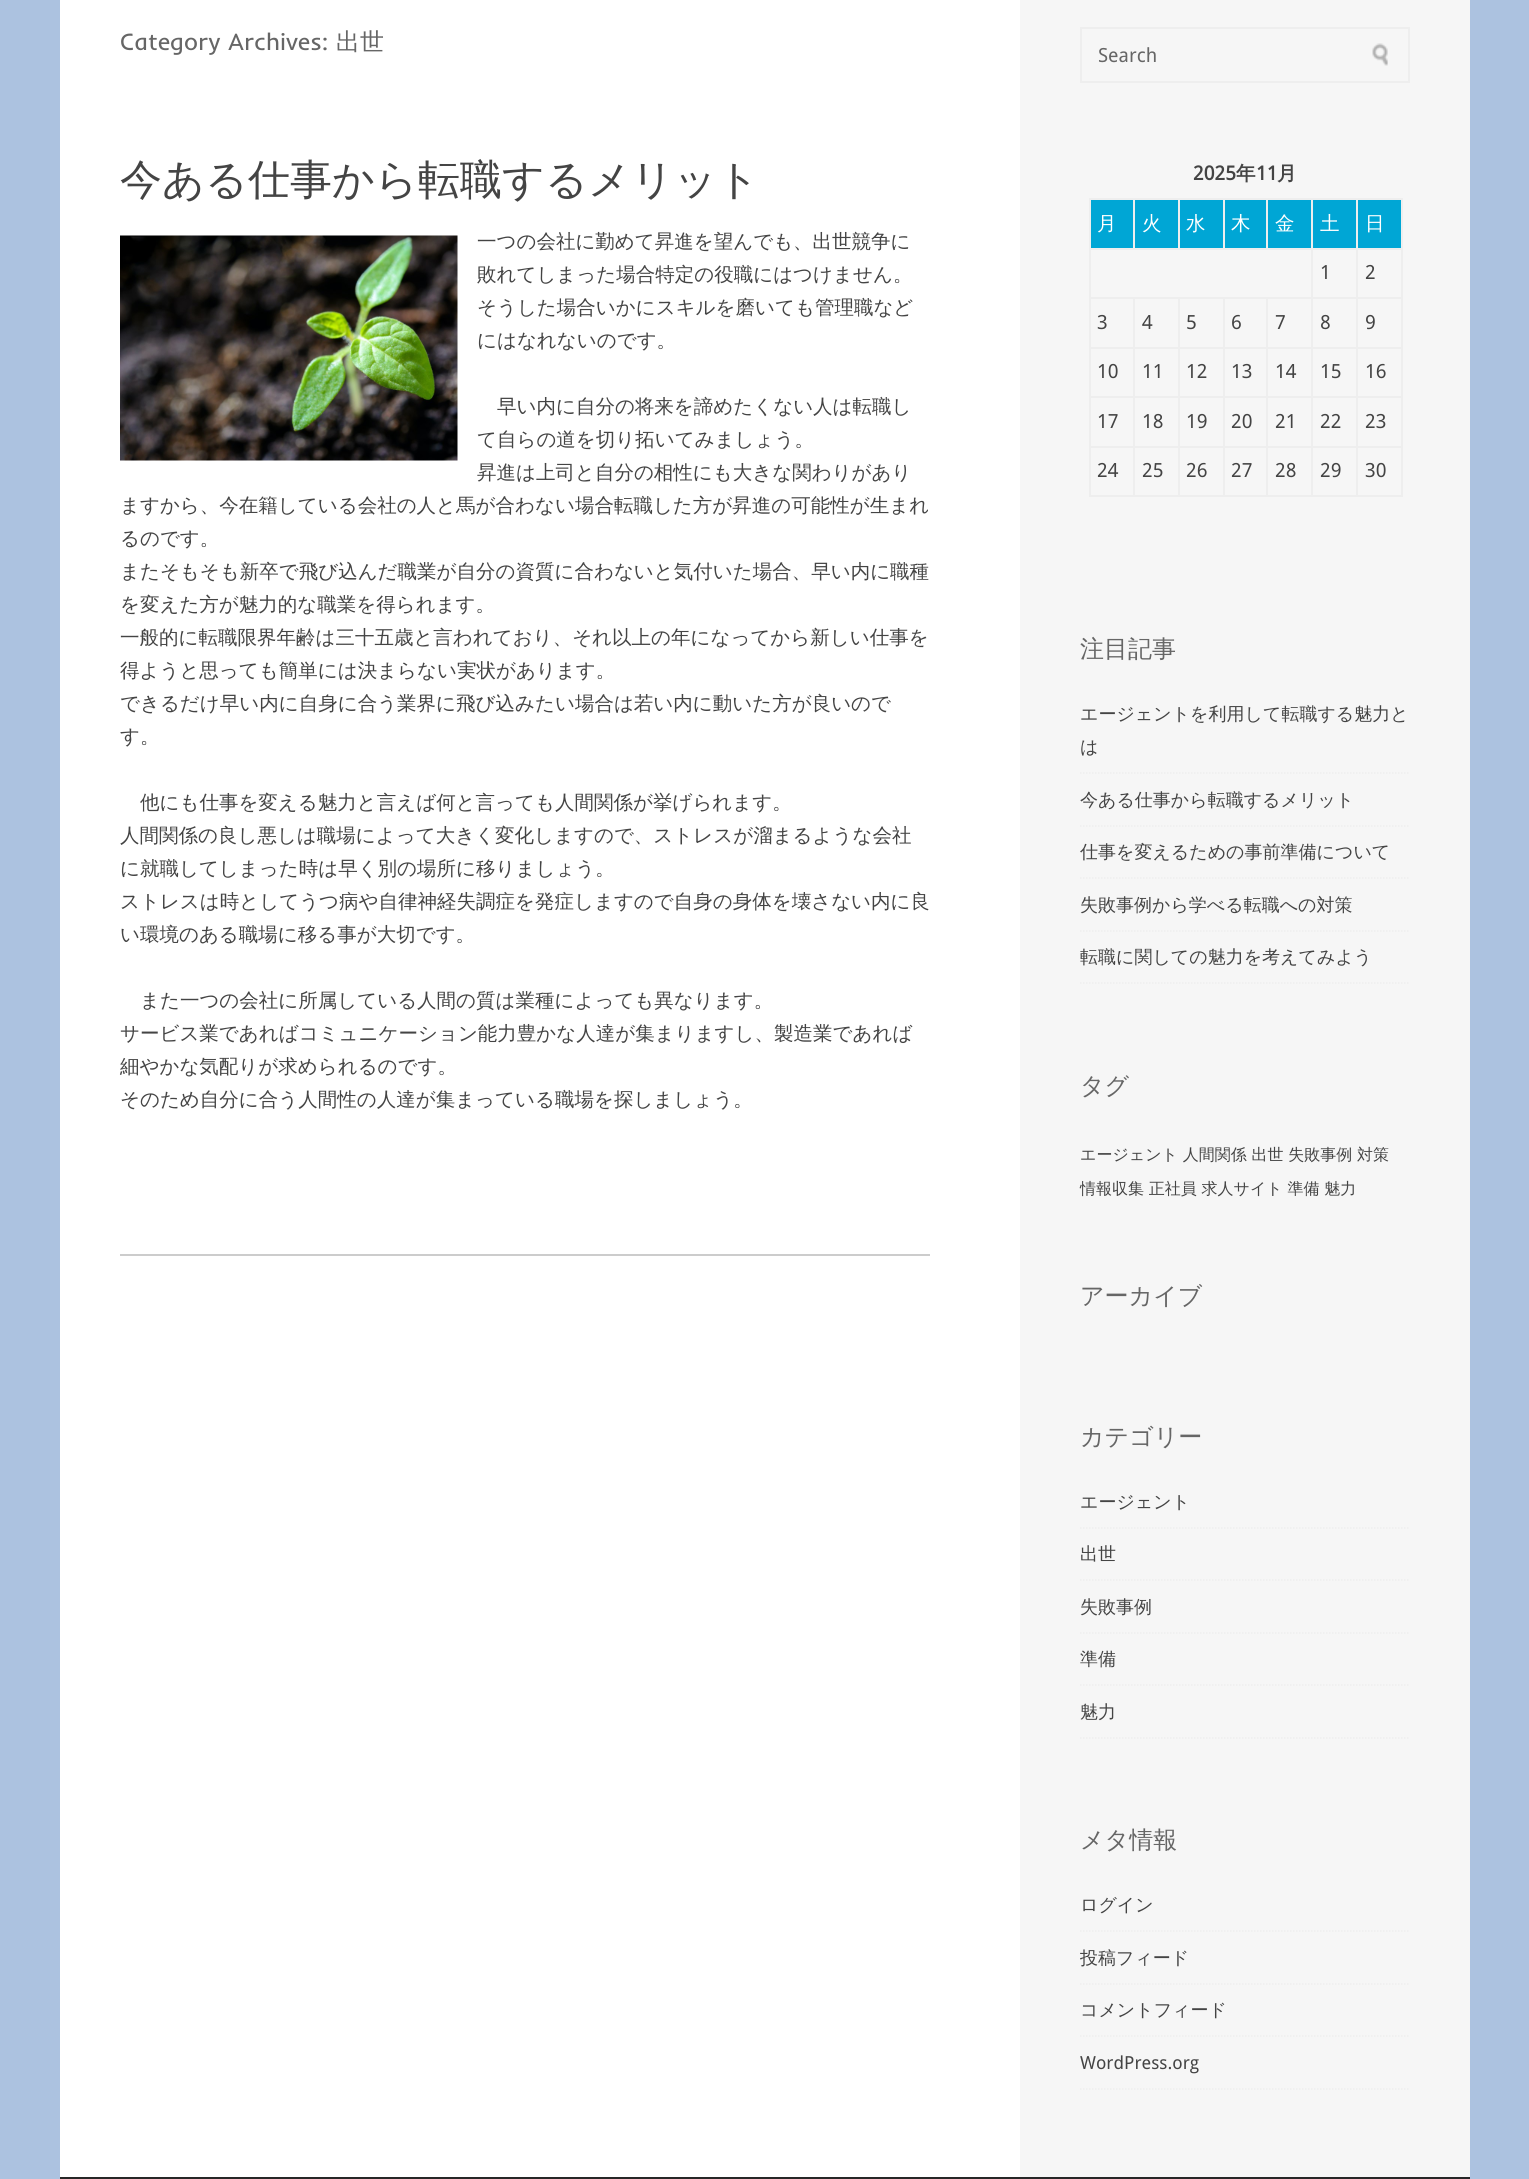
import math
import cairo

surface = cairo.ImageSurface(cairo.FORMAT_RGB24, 1529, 2179)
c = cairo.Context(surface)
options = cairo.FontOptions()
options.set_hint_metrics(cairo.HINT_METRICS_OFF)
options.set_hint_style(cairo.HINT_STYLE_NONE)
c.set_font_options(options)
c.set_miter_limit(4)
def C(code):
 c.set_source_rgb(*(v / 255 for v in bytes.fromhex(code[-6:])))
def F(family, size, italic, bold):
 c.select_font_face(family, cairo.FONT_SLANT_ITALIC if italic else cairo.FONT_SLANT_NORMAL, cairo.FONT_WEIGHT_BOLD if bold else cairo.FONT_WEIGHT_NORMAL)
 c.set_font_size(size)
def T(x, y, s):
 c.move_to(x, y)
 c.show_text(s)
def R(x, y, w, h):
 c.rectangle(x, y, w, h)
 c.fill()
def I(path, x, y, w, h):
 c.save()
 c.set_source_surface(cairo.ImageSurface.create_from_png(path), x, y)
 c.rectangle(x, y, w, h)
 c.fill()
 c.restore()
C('acc2e0')
c.paint()
C('ffffff')
R(60,0,960,2177)
F('Inder',24,0,0)
C('666666')
T(120,50,'Category Archives:')
F('WenQuanYi Zen Hei Medium',24,0,0)
T(336,50,'出世')
C('cccccc')
R(120,1254,810,2)
F('WenQuanYi Zen Hei Medium',42,0,0)
C('444444')
T(120,194,'今ある仕事から転職するメリット')
I('1.png',120,235,338,226)
F('WenQuanYi Zen Hei Medium',19.5,0,0)
T(477,248,'一つの会社に勤めて昇進を望んでも、出世競争に')
T(477,281,'敗れてしまった場合特定の役職にはつけません。')
T(477,314,'そうした場合いかにスキルを磨いても管理職など')
T(477,347,'にはなれないのです。')
T(497,413,'早い内に自分の将来を諦めたくない人は転職し')
T(477,446,'て自らの道を切り拓いてみましょう。')
T(477,479,'昇進は上司と自分の相性にも大きな関わりがあり')
T(120,512,'ますから、今在籍している会社の人と馬が合わない場合転職した方が昇進の可能性が生まれ')
T(120,545,'るのです。')
T(120,578,'またそもそも新卒で飛び込んだ職業が自分の資質に合わないと気付いた場合、早い内に職種')
T(120,611,'を変えた方が魅力的な職業を得られます。')
T(120,644,'一般的に転職限界年齢は三十五歳と言われており、それ以上の年になってから新しい仕事を')
T(120,677,'得ようと思っても簡単には決まらない実状があります。')
T(120,710,'できるだけ早い内に自身に合う業界に飛び込みたい場合は若い内に動いた方が良いので')
T(120,743,'す。')
T(140,809,'他にも仕事を変える魅力と言えば何と言っても人間関係が挙げられます。')
T(120,842,'人間関係の良し悪しは職場によって大きく変化しますので、ストレスが溜まるような会社')
T(120,875,'に就職してしまった時は早く別の場所に移りましょう。')
T(120,908,'ストレスは時としてうつ病や自律神経失調症を発症しますので自身の身体を壊さない内に良')
T(120,941,'い環境のある職場に移る事が大切です。')
T(140,1007,'また一つの会社に所属している人間の質は業種によっても異なります。')
T(120,1040,'サービス業であればコミュニケーション能力豊かな人達が集まりますし、製造業であれば')
T(120,1073,'細やかな気配りが求められるのです。')
T(120,1106,'そのため自分に合う人間性の人達が集まっている職場を探しましょう。')
C('f6f6f6')
R(1020,0,450,2177)
c.rectangle(1081,28,328,54)
C('eeeeee')
c.stroke()
F('Droid Sans',19.5,0,0)
C('666666')
T(1098,62,'Search')
I('2.png',1372,43,16,23)
F('Droid Sans',19.5,0,1)
C('444444')
T(1193,180,'2025')
F('WenQuanYi Zen Hei',19.5,0,1)
T(1236,180,'年')
F('Droid Sans',19.5,0,1)
T(1256,180,'11')
F('WenQuanYi Zen Hei',19.5,0,1)
T(1277,180,'月')
C('00a6d5')
R(1091,200,310,48)
C('eeeeee')
R(1356,198,47,2)
R(1356,248,47,2)
R(1356,297,47,2)
R(1356,347,47,2)
R(1356,396,47,2)
R(1356,446,47,2)
R(1401,446,2,51)
R(1356,495,47,2)
R(1356,446,2,51)
R(1311,446,47,2)
R(1356,396,2,51)
R(1311,396,47,2)
R(1356,347,2,51)
R(1311,347,47,2)
R(1356,297,2,51)
R(1311,297,47,2)
R(1356,248,2,51)
R(1311,248,47,2)
R(1356,198,2,51)
R(1311,198,47,2)
R(1311,495,47,2)
R(1311,446,2,51)
R(1266,446,47,2)
R(1311,396,2,51)
R(1266,396,47,2)
R(1311,347,2,51)
R(1266,347,47,2)
R(1311,297,2,51)
R(1266,297,47,2)
R(1311,248,2,51)
R(1089,248,224,2)
R(1311,198,2,51)
R(1266,198,47,2)
R(1266,198,2,51)
R(1223,198,45,2)
R(1223,198,2,51)
R(1178,198,46,2)
R(1178,198,2,51)
R(1133,198,46,2)
R(1133,198,2,51)
R(1089,198,45,2)
R(1266,495,47,2)
R(1266,446,2,51)
R(1223,446,45,2)
R(1266,396,2,51)
R(1223,396,45,2)
R(1266,347,2,51)
R(1223,347,45,2)
R(1266,297,2,51)
R(1223,297,45,2)
R(1223,495,45,2)
R(1223,446,2,51)
R(1178,446,46,2)
R(1223,396,2,51)
R(1178,396,46,2)
R(1223,347,2,51)
R(1178,347,46,2)
R(1223,297,2,51)
R(1178,297,46,2)
R(1178,495,46,2)
R(1178,446,2,51)
R(1133,446,46,2)
R(1178,396,2,51)
R(1133,396,46,2)
R(1178,347,2,51)
R(1133,347,46,2)
R(1178,297,2,51)
R(1133,297,46,2)
R(1133,495,46,2)
R(1133,446,2,51)
R(1089,446,45,2)
R(1133,396,2,51)
R(1089,396,45,2)
R(1133,347,2,51)
R(1089,347,45,2)
R(1133,297,2,51)
R(1089,297,45,2)
R(1089,495,45,2)
R(1089,446,2,51)
R(1089,396,2,51)
R(1089,347,2,51)
R(1089,297,2,51)
R(1089,248,2,51)
R(1089,198,2,51)
F('WenQuanYi Zen Hei Medium',19.5,0,0)
C('ffffff')
T(1097,230,'月')
T(1142,230,'火')
T(1186,230,'水')
T(1231,230,'木')
T(1275,230,'金')
T(1320,230,'土')
C('eeeeee')
R(1401,396,2,51)
R(1401,347,2,51)
R(1401,297,2,51)
R(1401,248,2,51)
R(1401,198,2,51)
C('ffffff')
T(1365,230,'日')
F('Droid Sans',19.5,0,0)
C('444444')
T(1320,279,'1')
T(1365,279,'2')
T(1097,329,'3')
T(1142,329,'4')
T(1186,329,'5')
T(1231,329,'6')
T(1275,329,'7')
T(1320,329,'8')
T(1365,329,'9')
T(1097,378,'10')
T(1142,378,'11')
T(1186,378,'12')
T(1231,378,'13')
T(1275,378,'14')
T(1320,378,'15')
T(1365,378,'16')
T(1097,428,'17')
T(1142,428,'18')
T(1186,428,'19')
T(1231,428,'20')
T(1275,428,'21')
T(1320,428,'22')
T(1365,428,'23')
T(1097,477,'24')
T(1142,477,'25')
T(1186,477,'26')
T(1231,477,'27')
T(1275,477,'28')
T(1320,477,'29')
T(1365,477,'30')
F('WenQuanYi Zen Hei Medium',24,0,0)
C('666666')
T(1080,657,'注目記事')
c.new_path()
c.move_to(1080,773)
c.line_to(1410,773)
C('eeeeee')
c.set_line_width(1.5)
c.set_dash([1.5,1.5])
c.stroke()
F('WenQuanYi Zen Hei Medium',18,0,0)
C('444444')
T(1080,720,'エージェントを利用して転職する魅力と')
T(1080,753,'は')
c.new_path()
c.move_to(1080,826)
c.line_to(1410,826)
C('eeeeee')
c.stroke()
C('444444')
T(1080,806,'今ある仕事から転職するメリット')
c.new_path()
c.move_to(1080,878)
c.line_to(1410,878)
C('eeeeee')
c.stroke()
C('444444')
T(1080,858,'仕事を変えるための事前準備について')
c.new_path()
c.move_to(1080,931)
c.line_to(1410,931)
C('eeeeee')
c.stroke()
C('444444')
T(1080,911,'失敗事例から学べる転職への対策')
c.new_path()
c.move_to(1080,983)
c.line_to(1410,983)
C('eeeeee')
c.stroke()
C('444444')
T(1080,963,'転職に関しての魅力を考えてみよう')
F('WenQuanYi Zen Hei Medium',24,0,0)
C('666666')
T(1080,1094,'タグ')
F('WenQuanYi Zen Hei Medium',16,0,0)
C('444444')
T(1080,1160,'エージェント 人間関係 出世 失敗事例 対策')
T(1080,1194,'情報収集 正社員 求人サイト 準備 魅力')
F('WenQuanYi Zen Hei Medium',24,0,0)
C('666666')
T(1080,1304,'アーカイブ')
T(1080,1445,'カテゴリー')
c.new_path()
c.move_to(1080,1528)
c.line_to(1410,1528)
C('eeeeee')
c.stroke()
F('WenQuanYi Zen Hei Medium',18,0,0)
C('444444')
T(1080,1508,'エージェント')
c.new_path()
c.move_to(1080,1580)
c.line_to(1410,1580)
C('eeeeee')
c.stroke()
C('444444')
T(1080,1560,'出世')
c.new_path()
c.move_to(1080,1633)
c.line_to(1410,1633)
C('eeeeee')
c.stroke()
C('444444')
T(1080,1613,'失敗事例')
c.new_path()
c.move_to(1080,1685)
c.line_to(1410,1685)
C('eeeeee')
c.stroke()
C('444444')
T(1080,1665,'準備')
c.new_path()
c.move_to(1080,1738)
c.line_to(1410,1738)
C('eeeeee')
c.stroke()
C('444444')
T(1080,1718,'魅力')
F('WenQuanYi Zen Hei Medium',24,0,0)
C('666666')
T(1080,1848,'メタ情報')
c.new_path()
c.move_to(1080,1931)
c.line_to(1410,1931)
C('eeeeee')
c.stroke()
F('WenQuanYi Zen Hei Medium',18,0,0)
C('444444')
T(1080,1911,'ログイン')
c.new_path()
c.move_to(1080,1984)
c.line_to(1410,1984)
C('eeeeee')
c.stroke()
C('444444')
T(1080,1964,'投稿フィード')
c.new_path()
c.move_to(1080,2036)
c.line_to(1410,2036)
C('eeeeee')
c.stroke()
C('444444')
T(1080,2016,'コメントフィード')
c.new_path()
c.move_to(1080,2089)
c.line_to(1410,2089)
C('eeeeee')
c.stroke()
F('Droid Sans',18,0,0)
C('444444')
T(1080,2069,'WordPress.org')
C('272727')
R(60,2177,1410,2)
surface.write_to_png('o.png')
